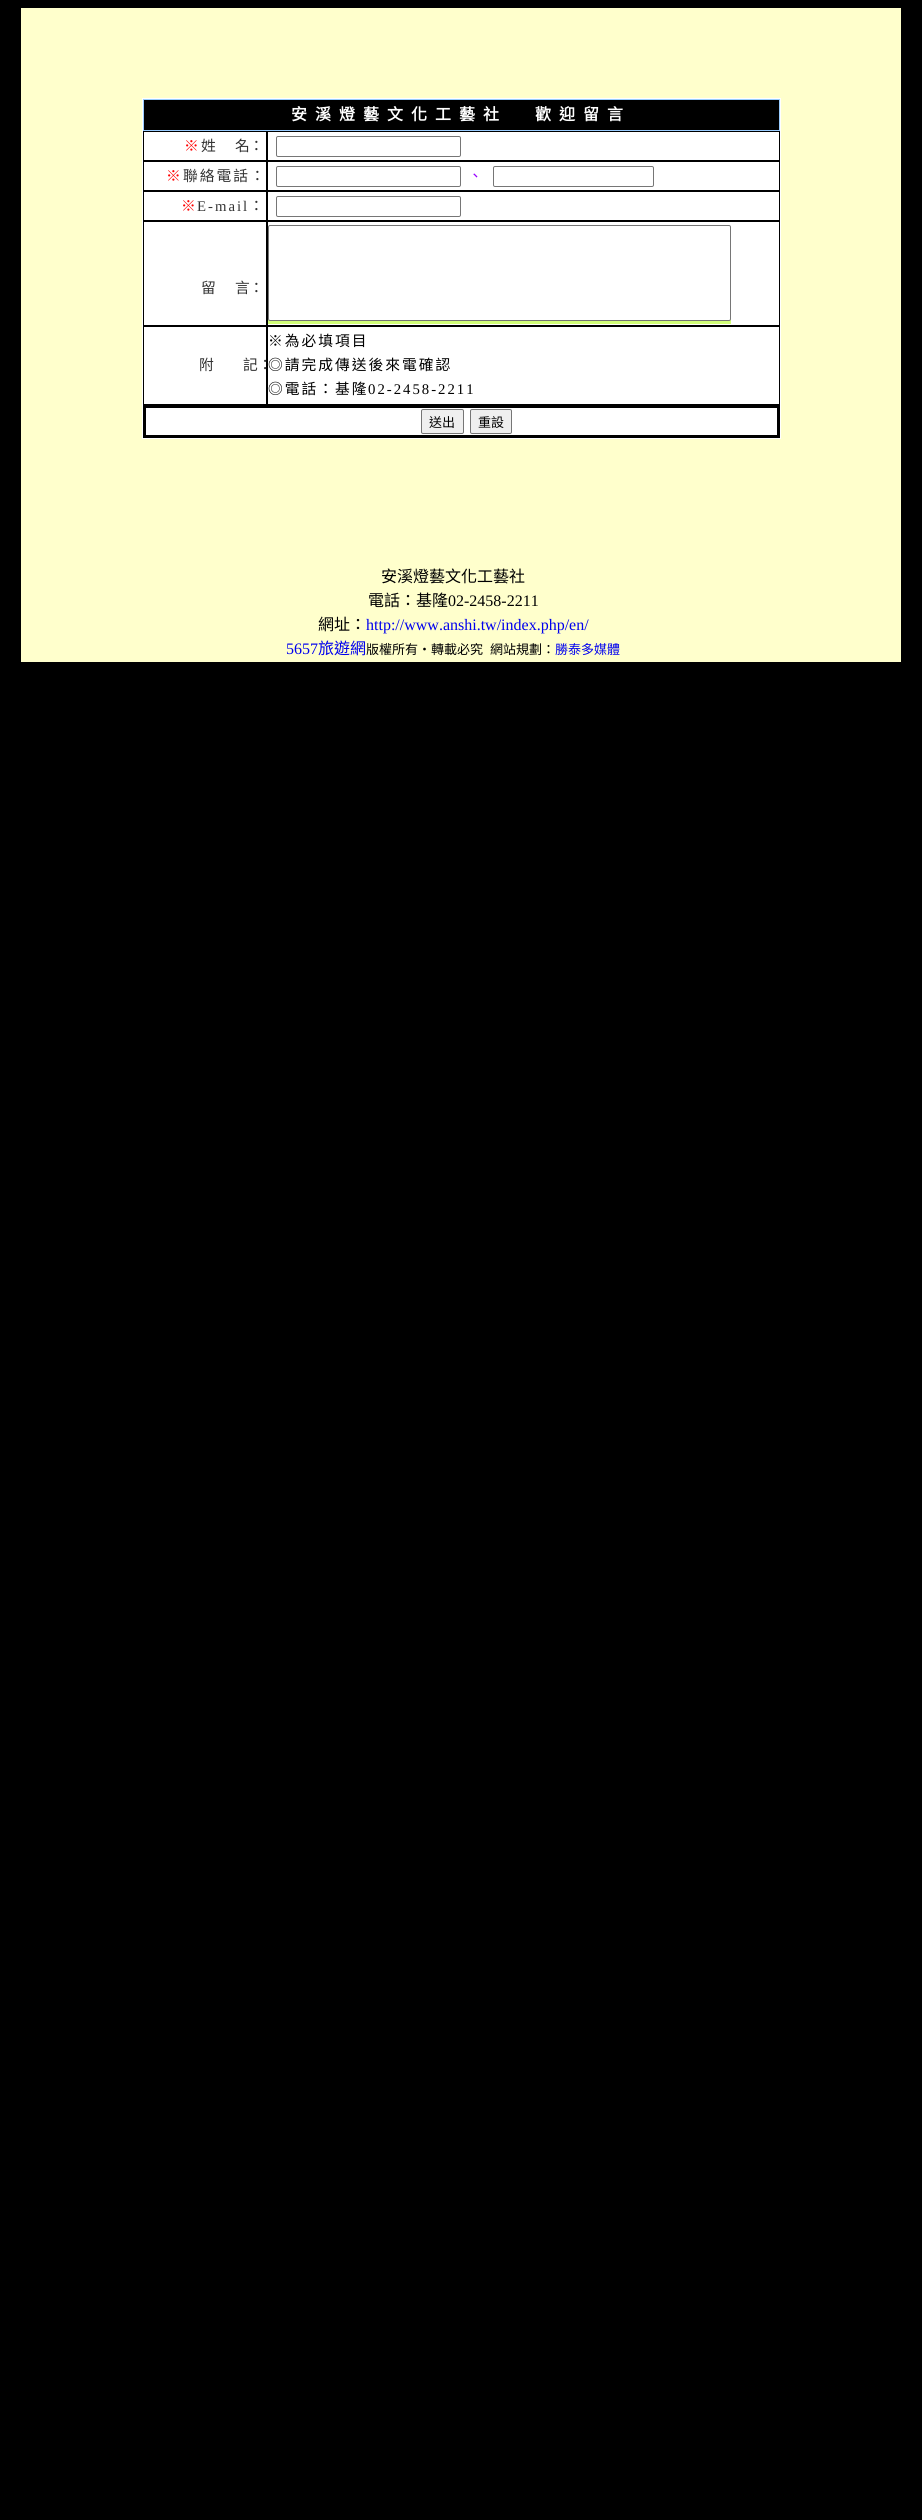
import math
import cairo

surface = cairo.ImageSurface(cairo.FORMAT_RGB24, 922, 2520)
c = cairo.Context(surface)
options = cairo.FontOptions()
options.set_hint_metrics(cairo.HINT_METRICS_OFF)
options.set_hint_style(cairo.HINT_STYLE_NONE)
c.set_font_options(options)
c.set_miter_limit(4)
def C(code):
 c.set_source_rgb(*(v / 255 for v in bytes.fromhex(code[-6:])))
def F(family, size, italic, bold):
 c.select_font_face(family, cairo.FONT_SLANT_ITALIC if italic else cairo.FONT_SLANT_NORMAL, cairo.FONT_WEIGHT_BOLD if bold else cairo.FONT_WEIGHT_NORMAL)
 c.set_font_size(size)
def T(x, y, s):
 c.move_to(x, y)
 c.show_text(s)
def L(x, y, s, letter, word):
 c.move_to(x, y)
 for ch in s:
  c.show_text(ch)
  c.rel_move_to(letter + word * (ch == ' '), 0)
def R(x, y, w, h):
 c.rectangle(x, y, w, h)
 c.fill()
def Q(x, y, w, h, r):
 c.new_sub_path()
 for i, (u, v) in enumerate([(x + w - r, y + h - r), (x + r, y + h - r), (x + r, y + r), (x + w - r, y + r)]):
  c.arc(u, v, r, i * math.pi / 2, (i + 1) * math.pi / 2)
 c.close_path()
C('000000')
c.paint()
C('ffffcc')
R(21,8,880,654)
C('ffffff')
R(142,98,639,341)
C('000000')
c.rectangle(143.5,99.5,636,31)
c.fill_preserve()
C('99ccff')
c.set_line_width(1)
c.stroke()
F('Noto Sans CJK TC',16,0,1)
C('ffffff')
L(291,120,'安溪燈藝文化工藝社',8,0)
L(535,120,'歡迎留言',8,0)
c.rectangle(143.5,131.5,123,29)
C('000000')
c.stroke()
F('Noto Sans CJK TC',14.75,0,0)
C('ff0000')
L(184,151,'※',2,0)
C('333333')
L(201,151,'姓',2,0)
L(235,151,'名',2,0)
L(249,151,'：',2,0)
c.rectangle(267.5,131.5,512,29)
C('000000')
c.stroke()
Q(276.5,136.5,184,20,1.5)
C('767676')
c.stroke()
c.rectangle(143.5,161.5,123,29)
C('000000')
c.stroke()
C('ff0000')
L(166,181,'※',2,0)
C('333333')
L(183,181,'聯絡電話：',2,0)
c.rectangle(267.5,161.5,512,29)
C('000000')
c.stroke()
Q(276.5,166.5,184,20,1.5)
C('767676')
c.stroke()
C('9900ff')
L(468,181,'、',2,0)
Q(493.5,166.5,160,20,1.5)
C('767676')
c.stroke()
c.rectangle(143.5,191.5,123,29)
C('000000')
c.stroke()
C('ff0000')
L(181,211,'※',2,0)
F('Liberation Serif',14.75,0,0)
C('333333')
L(197,211,'E-mail',2,0)
F('Noto Sans CJK TC',14.75,0,0)
L(249,211,'：',2,0)
c.rectangle(267.5,191.5,512,29)
C('000000')
c.stroke()
Q(276.5,196.5,184,20,1.5)
C('767676')
c.stroke()
c.rectangle(143.5,221.5,123,104)
C('000000')
c.stroke()
C('333333')
L(201,293,'留',2,0)
L(235,293,'言',2,0)
L(249,293,'：',2,0)
c.rectangle(267.5,221.5,512,104)
C('000000')
c.stroke()
C('d2ff78')
R(268,319,463,5)
C('ffffff')
Q(268.5,225.5,462,95,1.5)
c.fill_preserve()
C('767676')
c.stroke()
c.rectangle(143.5,326.5,123,78)
C('000000')
c.stroke()
C('333333')
T(199,370,'附')
T(243,370,'記：')
c.rectangle(267.5,326.5,512,78)
C('000000')
c.stroke()
L(268,346,'※為必填項目',2,0)
L(268,370,'◎請完成傳送後來電確認',2,0)
L(268,394,'◎電話：基隆',2,0)
F('Liberation Serif',14.75,0,0)
L(368,394,'02-2458-2211',2,0)
c.rectangle(144.5,406.5,634,30)
c.set_line_width(3)
c.stroke()
C('efefef')
Q(421.5,409.5,42,24,1.5)
c.fill_preserve()
C('767676')
c.set_line_width(1)
c.stroke()
F('Noto Sans CJK TC',13,0,0)
C('000000')
T(429,427,'送出')
C('efefef')
Q(470.5,409.5,41,24,1.5)
c.fill_preserve()
C('767676')
c.stroke()
C('000000')
T(478,427,'重設')
F('Noto Sans CJK TC',16,0,0)
T(381,582,'安溪燈藝文化工藝社')
T(368,606,'電話：基隆')
F('Liberation Serif',16,0,0)
T(448,606,'02-2458-2211')
F('Noto Sans CJK TC',16,0,0)
T(318,630,'網址：')
F('Liberation Serif',16,0,0)
C('0000ee')
T(366,630,'http://www.anshi.tw/index.php/en/')
T(286,654,'5657')
F('Noto Sans CJK TC',16,0,0)
T(318,654,'旅遊網')
F('Noto Sans CJK TC',13,0,0)
C('000000')
T(366,654,'版權所有‧轉載必究')
T(490,654,'網站規劃：')
C('0000ee')
T(555,654,'勝泰多媒體')
surface.write_to_png('o.png')
